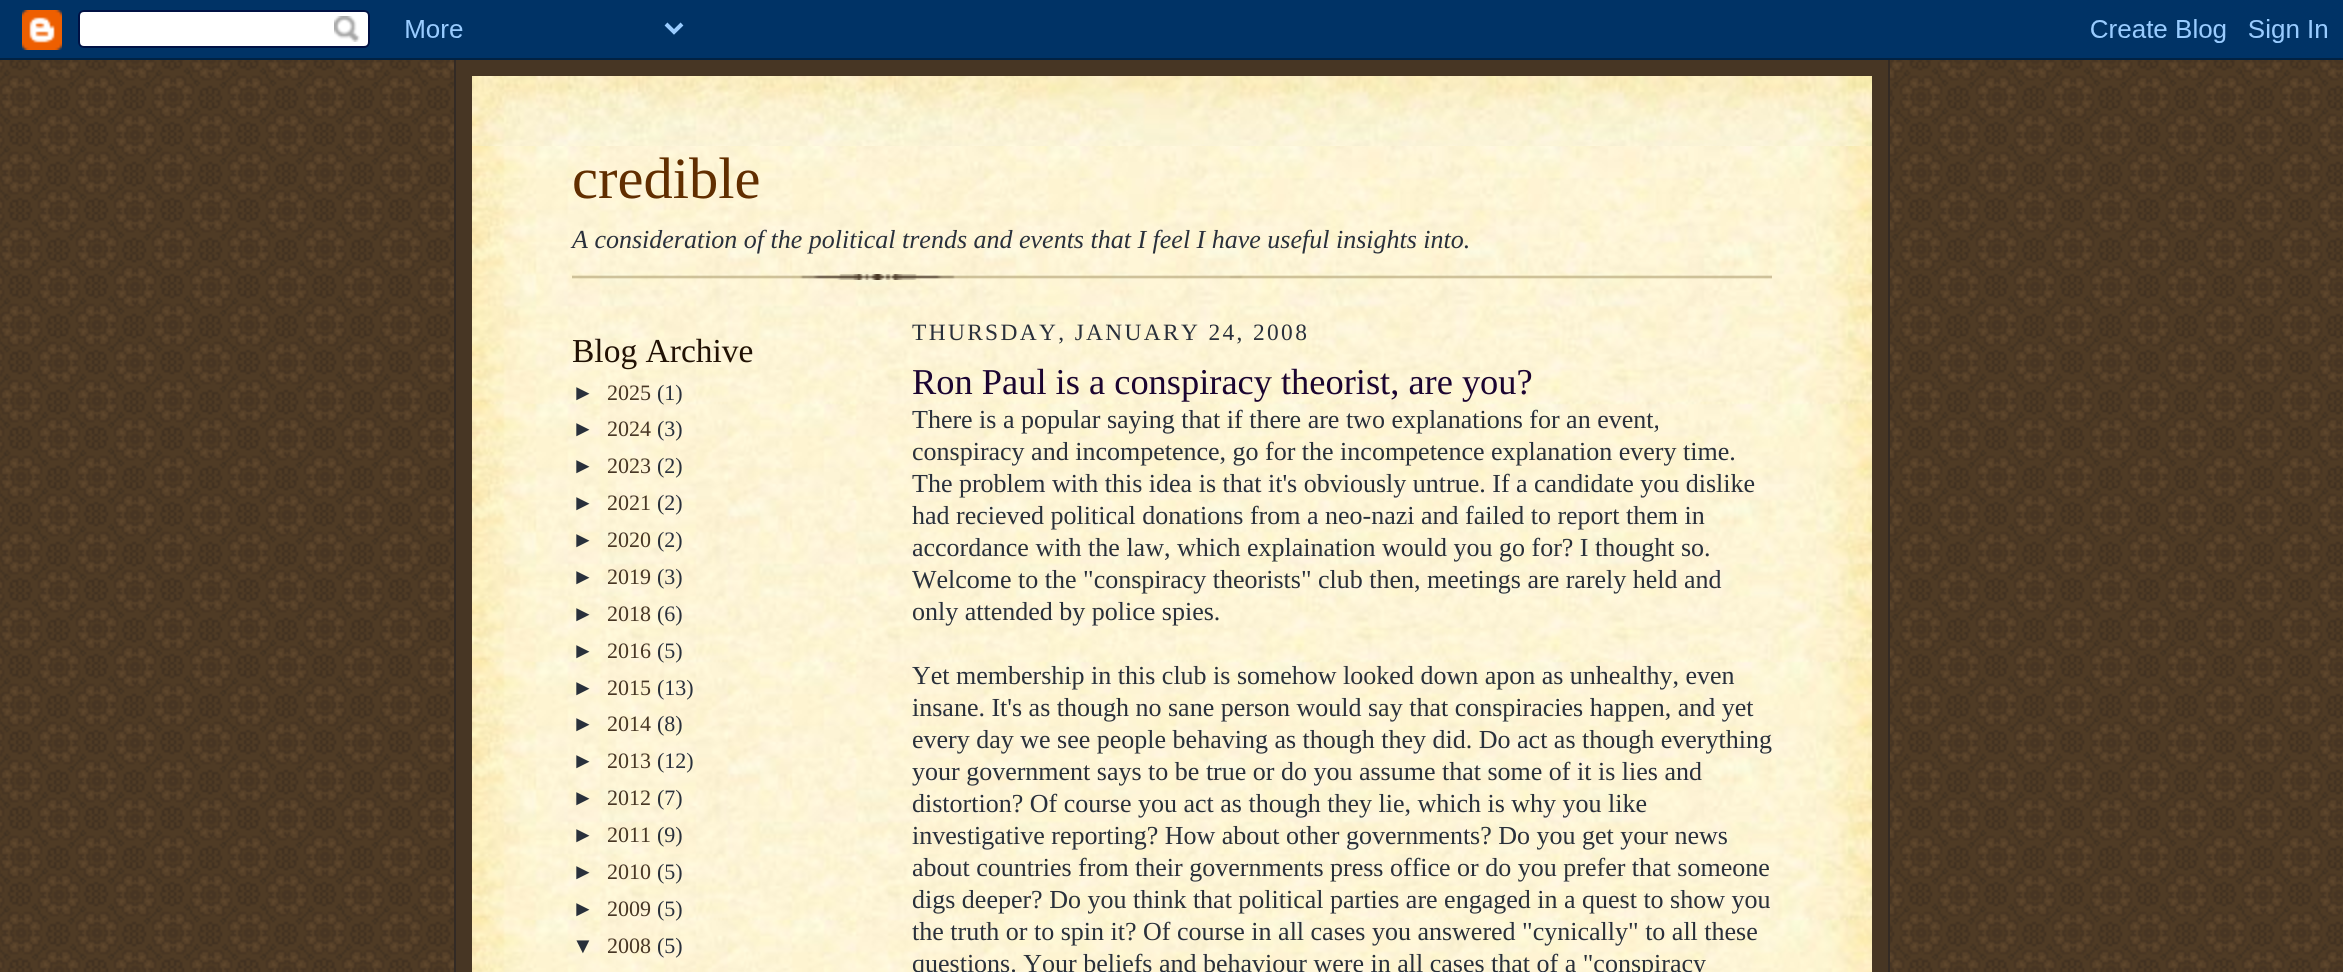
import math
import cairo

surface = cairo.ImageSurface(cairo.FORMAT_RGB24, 2343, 972)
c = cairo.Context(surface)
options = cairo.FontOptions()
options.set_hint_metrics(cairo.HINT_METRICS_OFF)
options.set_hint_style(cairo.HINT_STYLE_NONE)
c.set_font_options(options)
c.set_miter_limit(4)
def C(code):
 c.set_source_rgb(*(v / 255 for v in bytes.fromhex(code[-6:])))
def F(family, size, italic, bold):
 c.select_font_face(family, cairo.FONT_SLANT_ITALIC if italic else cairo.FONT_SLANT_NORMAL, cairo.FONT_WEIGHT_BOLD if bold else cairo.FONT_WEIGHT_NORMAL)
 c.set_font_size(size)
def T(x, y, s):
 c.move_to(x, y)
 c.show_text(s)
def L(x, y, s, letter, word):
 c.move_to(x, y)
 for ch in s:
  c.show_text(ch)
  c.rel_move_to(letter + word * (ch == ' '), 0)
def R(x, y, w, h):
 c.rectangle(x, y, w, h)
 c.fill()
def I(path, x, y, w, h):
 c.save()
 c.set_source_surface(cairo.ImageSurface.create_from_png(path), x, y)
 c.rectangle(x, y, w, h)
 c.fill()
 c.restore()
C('ffffff')
c.paint()
I('1.png',0,60,2343,912)
I('2.png',0,0,2343,60)
C('473624')
R(456,60,1432,912)
C('332a24')
R(1888,60,2,912)
R(454,60,2,912)
I('3.png',472,76,1400,70)
I('4.png',472,146,1400,826)
I('5.png',572,274,1200,6)
F('Liberation Serif',58.5,0,0)
C('612e00')
T(572,198,'credible')
F('Liberation Serif',26,1,0)
C('29303b')
T(572,248,'A consideration of the political trends and events that I feel I have useful insights into.')
F('Liberation Serif',33.5,0,0)
C('211104')
T(572,362,'Blog Archive')
F('Liberation Sans',22,0,0)
C('29303b')
T(572,400,'►')
F('Liberation Serif',22,0,0)
C('473624')
T(607,400,'2025')
C('29303b')
T(657,400,'(1)')
F('Liberation Sans',22,0,0)
T(572,436,'►')
F('Liberation Serif',22,0,0)
C('473624')
T(607,436,'2024')
C('29303b')
T(657,436,'(3)')
F('Liberation Sans',22,0,0)
T(572,473,'►')
F('Liberation Serif',22,0,0)
C('473624')
T(607,473,'2023')
C('29303b')
T(657,473,'(2)')
F('Liberation Sans',22,0,0)
T(572,510,'►')
F('Liberation Serif',22,0,0)
C('473624')
T(607,510,'2021')
C('29303b')
T(657,510,'(2)')
F('Liberation Sans',22,0,0)
T(572,547,'►')
F('Liberation Serif',22,0,0)
C('473624')
T(607,547,'2020')
C('29303b')
T(657,547,'(2)')
F('Liberation Sans',22,0,0)
T(572,584,'►')
F('Liberation Serif',22,0,0)
C('473624')
T(607,584,'2019')
C('29303b')
T(657,584,'(3)')
F('Liberation Sans',22,0,0)
T(572,621,'►')
F('Liberation Serif',22,0,0)
C('473624')
T(607,621,'2018')
C('29303b')
T(657,621,'(6)')
F('Liberation Sans',22,0,0)
T(572,658,'►')
F('Liberation Serif',22,0,0)
C('473624')
T(607,658,'2016')
C('29303b')
T(657,658,'(5)')
F('Liberation Sans',22,0,0)
T(572,695,'►')
F('Liberation Serif',22,0,0)
C('473624')
T(607,695,'2015')
C('29303b')
T(657,695,'(13)')
F('Liberation Sans',22,0,0)
T(572,731,'►')
F('Liberation Serif',22,0,0)
C('473624')
T(607,731,'2014')
C('29303b')
T(657,731,'(8)')
F('Liberation Sans',22,0,0)
T(572,768,'►')
F('Liberation Serif',22,0,0)
C('473624')
T(607,768,'2013')
C('29303b')
T(657,768,'(12)')
F('Liberation Sans',22,0,0)
T(572,805,'►')
F('Liberation Serif',22,0,0)
C('473624')
T(607,805,'2012')
C('29303b')
T(657,805,'(7)')
F('Liberation Sans',22,0,0)
T(572,842,'►')
F('Liberation Serif',22,0,0)
C('473624')
T(607,842,'2011')
C('29303b')
T(657,842,'(9)')
F('Liberation Sans',22,0,0)
T(572,879,'►')
F('Liberation Serif',22,0,0)
C('473624')
T(607,879,'2010')
C('29303b')
T(657,879,'(5)')
F('Liberation Sans',22,0,0)
T(572,916,'►')
F('Liberation Serif',22,0,0)
C('473624')
T(607,916,'2009')
C('29303b')
T(657,916,'(5)')
F('Liberation Sans',22,0,0)
T(572,953,'▼')
F('Liberation Serif',22,0,0)
C('473624')
T(607,953,'2008')
C('29303b')
T(657,953,'(5)')
F('Liberation Serif',23.4,0,0)
L(912,340,'THURSDAY, JANUARY 24, 2008',2.35,0)
F('Liberation Serif',36.4,0,0)
C('1b0431')
T(912,394,'Ron Paul is a conspiracy theorist, are you?')
F('Liberation Serif',26,0,0)
C('29303b')
T(912,428,'There is a popular saying that if there are two explanations for an event,')
T(912,460,'conspiracy and incompetence, go for the incompetence explanation every time.')
T(912,492,'The problem with this idea is that it\'s obviously untrue. If a candidate you dislike')
T(912,524,'had recieved political donations from a neo-nazi and failed to report them in')
T(912,556,'accordance with the law, which explaination would you go for? I thought so.')
T(912,588,'Welcome to the "conspiracy theorists" club then, meetings are rarely held and')
T(912,620,'only attended by police spies.')
T(912,684,'Yet membership in this club is somehow looked down apon as unhealthy, even')
T(912,716,'insane. It\'s as though no sane person would say that conspiracies happen, and yet')
T(912,748,'every day we see people behaving as though they did. Do act as though everything')
T(912,780,'your government says to be true or do you assume that some of it is lies and')
T(912,812,'distortion? Of course you act as though they lie, which is why you like')
T(912,844,'investigative reporting? How about other governments? Do you get your news')
T(912,876,'about countries from their governments press office or do you prefer that someone')
T(912,908,'digs deeper? Do you think that political parties are engaged in a quest to show you')
T(912,940,'the truth or to spin it? Of course in all cases you answered "cynically" to all these')
T(912,972,'questions. Your beliefs and behaviour were in all cases that of a "conspiracy')
surface.write_to_png('o.png')
